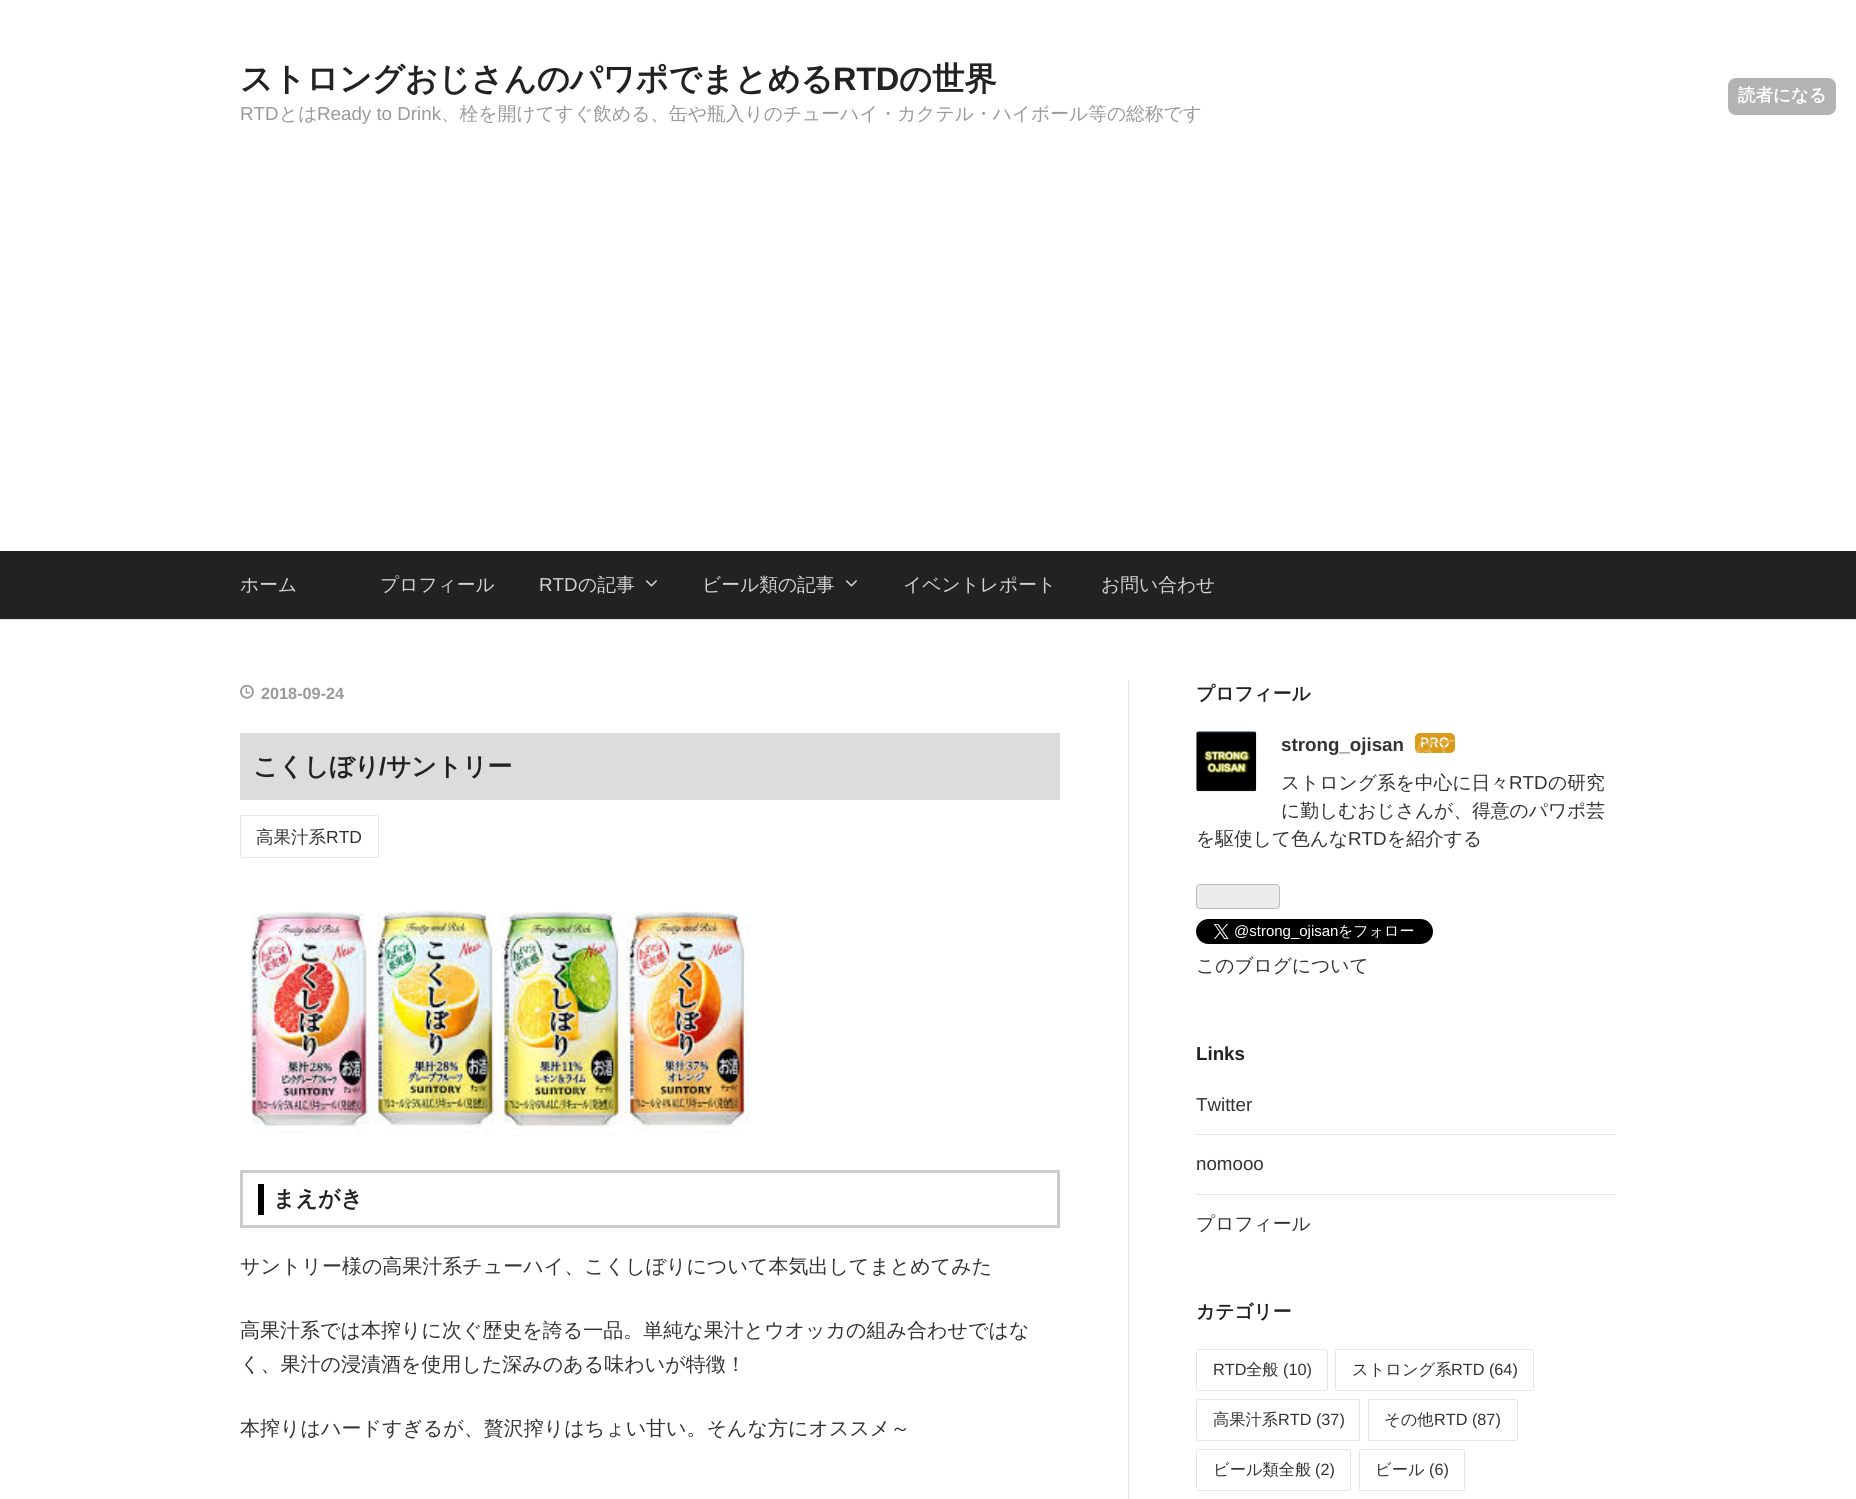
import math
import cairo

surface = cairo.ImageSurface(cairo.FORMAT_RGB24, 1856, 1499)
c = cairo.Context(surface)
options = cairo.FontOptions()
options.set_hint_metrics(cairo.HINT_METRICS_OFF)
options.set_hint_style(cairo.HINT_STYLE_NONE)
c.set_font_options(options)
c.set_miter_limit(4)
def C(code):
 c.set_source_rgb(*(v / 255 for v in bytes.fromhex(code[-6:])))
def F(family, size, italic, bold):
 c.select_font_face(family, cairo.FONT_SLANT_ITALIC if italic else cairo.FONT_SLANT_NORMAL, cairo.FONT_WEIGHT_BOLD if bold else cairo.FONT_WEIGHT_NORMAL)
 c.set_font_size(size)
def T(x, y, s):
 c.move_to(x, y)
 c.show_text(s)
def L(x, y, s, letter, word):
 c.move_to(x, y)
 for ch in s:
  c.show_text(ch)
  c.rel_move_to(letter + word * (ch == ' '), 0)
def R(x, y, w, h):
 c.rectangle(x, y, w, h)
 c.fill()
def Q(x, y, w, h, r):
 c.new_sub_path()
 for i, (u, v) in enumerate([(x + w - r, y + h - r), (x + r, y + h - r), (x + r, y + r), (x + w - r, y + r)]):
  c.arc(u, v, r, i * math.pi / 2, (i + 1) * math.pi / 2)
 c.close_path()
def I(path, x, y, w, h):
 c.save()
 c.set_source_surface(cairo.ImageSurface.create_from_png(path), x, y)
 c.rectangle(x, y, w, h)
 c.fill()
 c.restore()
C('ffffff')
c.paint()
F('WenQuanYi Zen Hei',32.5,0,1)
C('222222')
L(240,90,'ストロングおじさんのパワポでまとめる',-.3,0)
F('Liberation Sans',32.5,0,1)
L(833,90,'RTD',-.3,0)
F('WenQuanYi Zen Hei',32.5,0,1)
L(899,90,'の世界',-.3,0)
F('Liberation Sans',18.75,0,0)
C('999999')
T(240,120,'RTD')
F('WenQuanYi Zen Hei Medium',18.75,0,0)
T(279,120,'とは')
F('Liberation Sans',18.75,0,0)
T(317,120,'Ready to Drink')
F('WenQuanYi Zen Hei Medium',18.75,0,0)
T(441,120,'、栓を開けてすぐ飲める、缶や瓶入りのチューハイ・カクテル・ハイボール等の総称です')
C('222222')
R(0,551,1856,68)
C('d3d3d3')
T(240,591,'ホーム')
T(380,591,'プロフィール')
F('Liberation Sans',18.75,0,0)
T(539,591,'RTD')
F('WenQuanYi Zen Hei Medium',18.75,0,0)
T(578,591,'の記事')
I('1.png',645,580,12,7)
T(702,591,'ビール類の記事')
I('1.png',845,580,12,7)
T(903,591,'イベントレポート')
T(1101,591,'お問い合わせ')
C('e6e6e6')
R(0,619,1856,1)
R(1128,680,1,819)
I('2.png',240,684,14,15)
F('Liberation Sans',16.25,0,1)
C('999999')
T(261,699,'2018-09-24')
C('dcdcdc')
R(240,733,820,67)
F('WenQuanYi Zen Hei',25,0,1)
C('222222')
L(253,775,'こくしぼり',-.25,0)
F('Liberation Sans',25,0,1)
L(379,775,'/',-.25,0)
F('WenQuanYi Zen Hei',25,0,1)
L(386,775,'サントリー',-.25,0)
Q(240.5,815.5,138,42,2)
C('e6e6e6')
c.set_line_width(1)
c.stroke()
F('WenQuanYi Zen Hei Medium',17.5,0,0)
C('333333')
T(256,843,'高果汁系')
F('Liberation Sans',17.5,0,0)
T(326,843,'RTD')
I('3.png',250,910,500,226)
c.rectangle(241.5,1171.5,817,55)
C('cccccc')
c.set_line_width(3)
c.stroke()
C('000000')
R(258,1184,6,31)
F('WenQuanYi Zen Hei',22,0,1)
C('222222')
T(273,1206,'まえがき')
F('WenQuanYi Zen Hei Medium',20,0,0)
C('333333')
T(240,1273,'サントリー様の高果汁系チューハイ、こくしぼりについて本気出してまとめてみた')
T(240,1337,'高果汁系では本搾りに次ぐ歴史を誇る一品。単純な果汁とウオッカの組み合わせではな')
T(240,1371,'く、果汁の浸漬酒を使用した深みのある味わいが特徴！')
T(240,1435,'本搾りはハードすぎるが、贅沢搾りはちょい甘い。そんな方にオススメ～')
F('WenQuanYi Zen Hei',18.75,0,1)
C('222222')
T(1196,700,'プロフィール')
I('4.png',1196,731,61,61)
F('Liberation Sans',18.75,0,1)
C('333333')
T(1281,751,'strong_ojisan')
I('5.png',1415,733,40,20)
c.save()
c.rectangle(1415,733,40,20)
c.clip()
F('WenQuanYi Zen Hei',18.75,1,1)
C('e4b452')
T(1415,753,'はて')
c.restore()
F('WenQuanYi Zen Hei Medium',18.75,0,0)
T(1281,789,'ストロング系を中心に日々')
F('Liberation Sans',18.75,0,0)
T(1509,789,'RTD')
F('WenQuanYi Zen Hei Medium',18.75,0,0)
T(1548,789,'の研究')
T(1281,817,'に勤しむおじさんが、得意のパワポ芸')
T(1196,845,'を駆使して色んな')
F('Liberation Sans',18.75,0,0)
T(1348,845,'RTD')
F('WenQuanYi Zen Hei Medium',18.75,0,0)
T(1387,845,'を紹介する')
C('ebebeb')
Q(1196.5,884.5,83,24,3.5)
c.fill_preserve()
C('bbbbbb')
c.set_line_width(1)
c.stroke()
C('000000')
Q(1196,919,237,25,12.5)
c.fill()
I('6.png',1214,924,15,15)
F('Liberation Sans',15,0,0)
C('ffffff')
T(1234,936,'@strong_ojisan')
F('WenQuanYi Zen Hei Medium',15,0,0)
T(1338,936,'をフォロー')
F('WenQuanYi Zen Hei Medium',18.75,0,0)
C('333333')
T(1196,972,'このブログについて')
F('Liberation Sans',18.75,0,1)
C('222222')
T(1196,1060,'Links')
F('Liberation Sans',18.75,0,0)
C('333333')
T(1196,1111,'Twitter')
C('e6e6e6')
R(1196,1134,420,1)
C('333333')
T(1196,1170,'nomooo')
C('e6e6e6')
R(1196,1194,420,1)
F('WenQuanYi Zen Hei Medium',18.75,0,0)
C('333333')
T(1196,1230,'プロフィール')
F('WenQuanYi Zen Hei',18.75,0,1)
C('222222')
T(1196,1318,'カテゴリー')
Q(1196.5,1349.5,131,41,2)
C('e6e6e6')
c.stroke()
F('Liberation Sans',16.25,0,0)
C('333333')
T(1213,1375,'RTD')
F('WenQuanYi Zen Hei Medium',16.25,0,0)
T(1246,1375,'全般')
F('Liberation Sans',16.25,0,0)
T(1283,1375,'(10)')
Q(1335.5,1349.5,198,41,2)
C('e6e6e6')
c.stroke()
F('WenQuanYi Zen Hei Medium',16.25,0,0)
C('333333')
T(1352,1375,'ストロング系')
F('Liberation Sans',16.25,0,0)
T(1451,1375,'RTD (64)')
Q(1196.5,1399.5,163,41,2)
C('e6e6e6')
c.stroke()
F('WenQuanYi Zen Hei Medium',16.25,0,0)
C('333333')
T(1213,1425,'高果汁系')
F('Liberation Sans',16.25,0,0)
T(1278,1425,'RTD (37)')
Q(1368.5,1399.5,149,41,2)
C('e6e6e6')
c.stroke()
F('WenQuanYi Zen Hei Medium',16.25,0,0)
C('333333')
T(1384,1425,'その他')
F('Liberation Sans',16.25,0,0)
T(1434,1425,'RTD (87)')
Q(1196.5,1449.5,154,41,2)
C('e6e6e6')
c.stroke()
F('WenQuanYi Zen Hei Medium',16.25,0,0)
C('333333')
T(1213,1475,'ビール類全般')
F('Liberation Sans',16.25,0,0)
T(1315,1475,'(2)')
Q(1359.5,1449.5,105,41,2)
C('e6e6e6')
c.stroke()
F('WenQuanYi Zen Hei Medium',16.25,0,0)
C('333333')
T(1375,1475,'ビール')
F('Liberation Sans',16.25,0,0)
T(1429,1475,'(6)')
C('b1b3b5')
Q(1728,78,108,37,8)
c.fill()
F('WenQuanYi Zen Hei',17.5,0,1)
C('ffffff')
T(1738,101,'読者になる')
surface.write_to_png('o.png')
